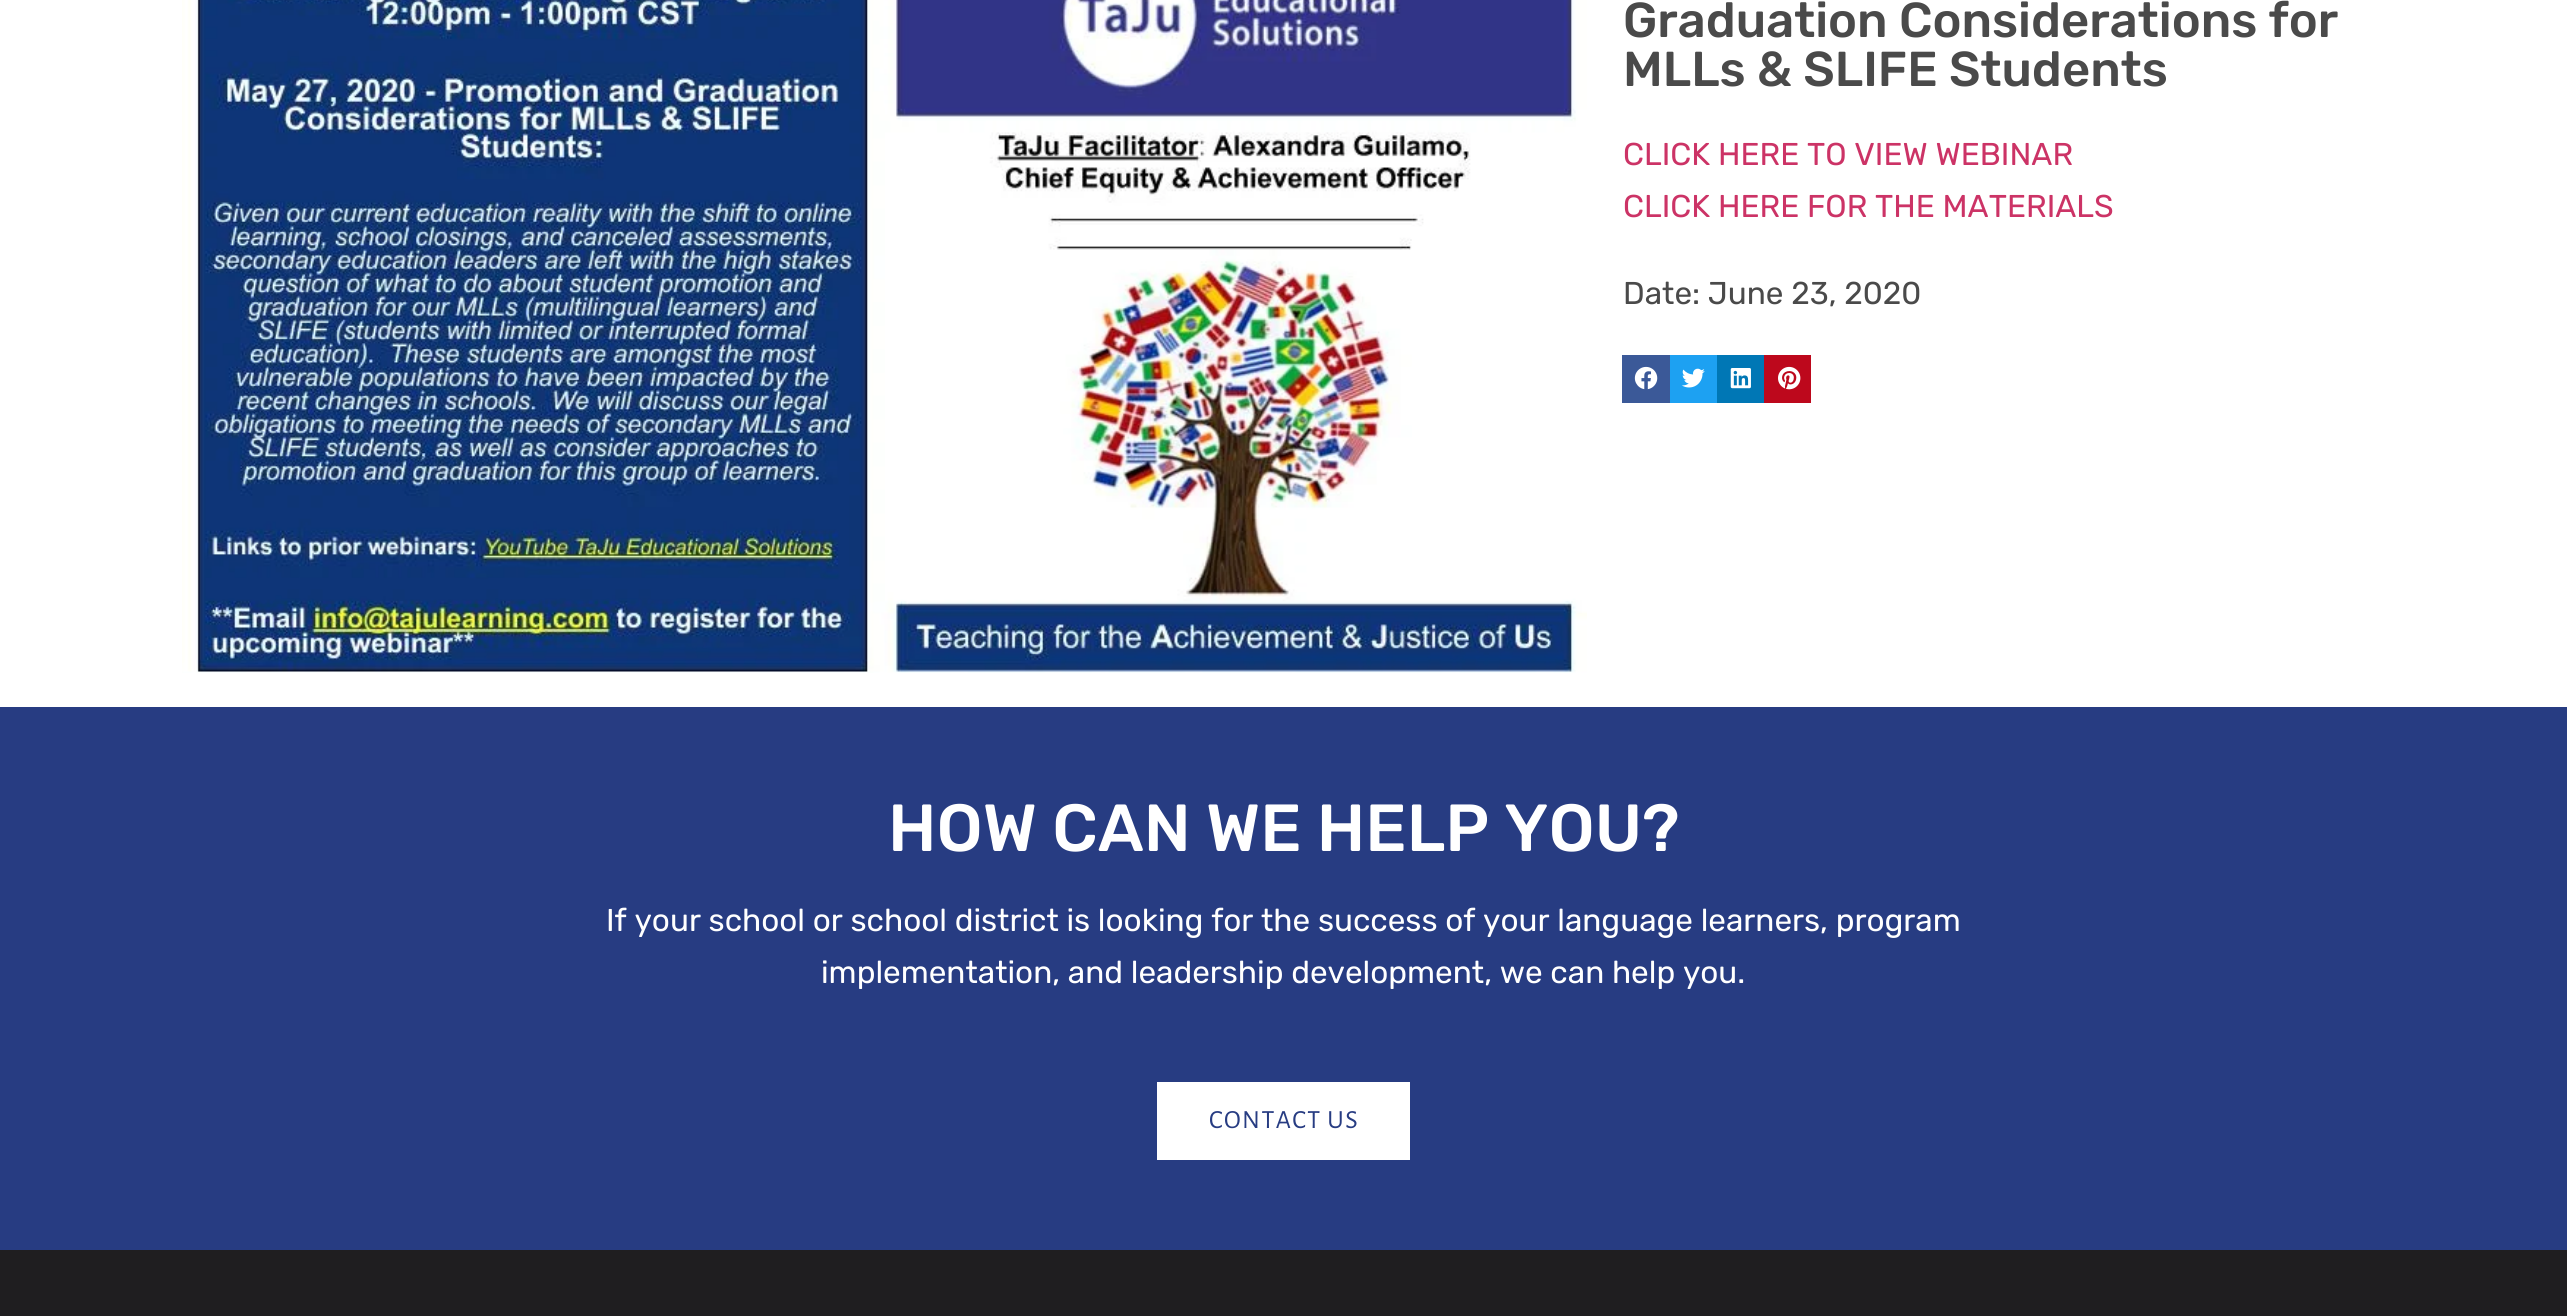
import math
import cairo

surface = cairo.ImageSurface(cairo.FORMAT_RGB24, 2567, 1316)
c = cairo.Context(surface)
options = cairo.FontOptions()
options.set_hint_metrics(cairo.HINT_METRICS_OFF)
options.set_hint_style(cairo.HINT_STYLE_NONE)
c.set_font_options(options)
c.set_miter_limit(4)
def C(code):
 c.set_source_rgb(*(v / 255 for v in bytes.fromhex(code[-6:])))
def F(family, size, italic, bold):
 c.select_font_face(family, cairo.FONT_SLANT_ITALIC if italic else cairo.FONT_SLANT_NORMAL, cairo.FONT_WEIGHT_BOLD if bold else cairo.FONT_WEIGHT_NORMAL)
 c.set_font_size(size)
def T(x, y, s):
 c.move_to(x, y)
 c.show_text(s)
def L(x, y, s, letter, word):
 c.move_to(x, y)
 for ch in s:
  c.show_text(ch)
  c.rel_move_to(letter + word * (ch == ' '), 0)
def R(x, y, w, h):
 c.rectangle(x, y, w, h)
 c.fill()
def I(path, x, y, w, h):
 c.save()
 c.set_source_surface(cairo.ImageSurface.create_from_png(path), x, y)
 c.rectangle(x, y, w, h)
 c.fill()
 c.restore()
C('ffffff')
c.paint()
I('1.png',182,0,1405,673)
F('Rubik Medium',49,0,0)
C('4a4a4a')
T(1623,37,'Graduation Considerations for')
T(1623,86,'MLLs & SLIFE Students')
F('Rubik',31.5,0,0)
C('cc3366')
T(1623,165,'CLICK HERE TO VIEW WEBINAR')
T(1623,217,'CLICK HERE FOR THE MATERIALS')
C('4a4a4a')
T(1623,304,'Date: June 23, 2020')
C('3b5998')
R(1622,355,48,48)
I('2.png',1634,366,24,24)
C('1da1f2')
R(1670,355,47,48)
I('3.png',1681,368,24,20)
C('0077b5')
R(1717,355,47,48)
I('4.png',1730,368,21,21)
C('bd081c')
R(1764,355,47,48)
I('5.png',1778,366,23,24)
C('273c82')
R(0,707,2567,543)
F('Rubik Medium',66.5,0,0)
C('ffffff')
T(888,851,'HOW CAN WE HELP YOU?')
F('Rubik',31.5,0,0)
T(606,931,'If your school or school district is looking for the success of your language learners, program')
T(821,983,'implementation, and leadership development, we can help you.')
R(1157,1082,253,78)
F('Alegreya Sans',26.25,0,0)
C('273c82')
L(1209,1128,'CONTACT US',1.4,0)
C('1f1e20')
R(0,1250,2567,66)
surface.write_to_png('o.png')
